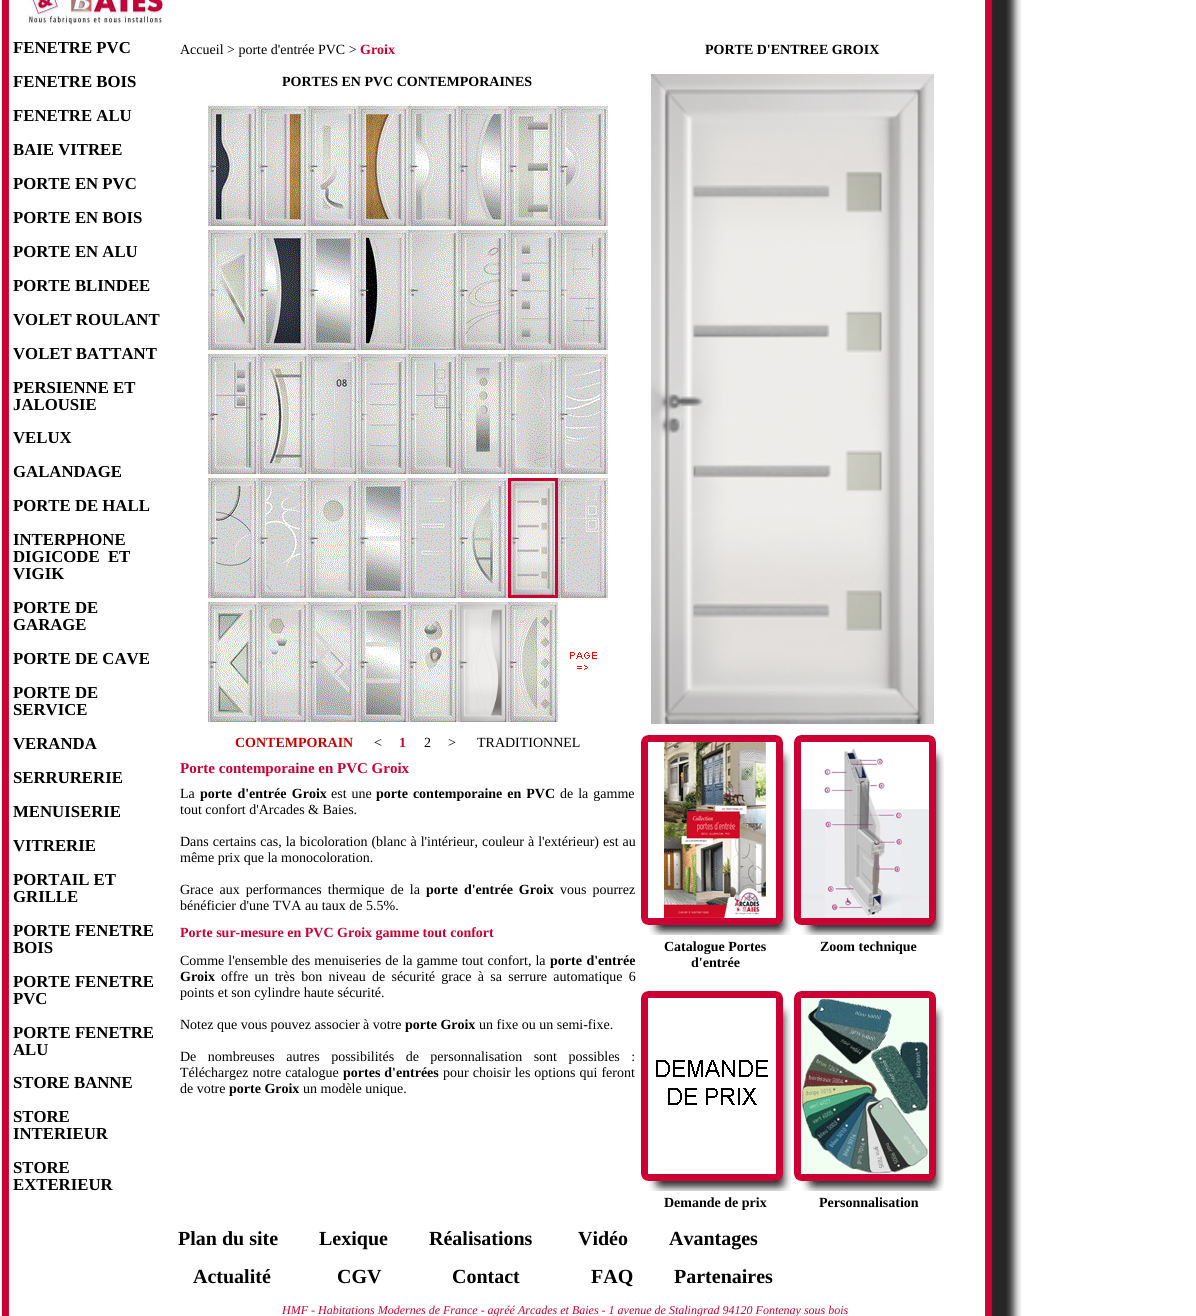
import math
import cairo

surface = cairo.ImageSurface(cairo.FORMAT_RGB24, 1196, 1316)
c = cairo.Context(surface)
options = cairo.FontOptions()
options.set_hint_metrics(cairo.HINT_METRICS_OFF)
options.set_hint_style(cairo.HINT_STYLE_NONE)
c.set_font_options(options)
c.set_miter_limit(4)
def C(code):
 c.set_source_rgb(*(v / 255 for v in bytes.fromhex(code[-6:])))
def F(family, size, italic, bold):
 c.select_font_face(family, cairo.FONT_SLANT_ITALIC if italic else cairo.FONT_SLANT_NORMAL, cairo.FONT_WEIGHT_BOLD if bold else cairo.FONT_WEIGHT_NORMAL)
 c.set_font_size(size)
def T(x, y, s):
 c.move_to(x, y)
 c.show_text(s)
def L(x, y, s, letter, word):
 c.move_to(x, y)
 for ch in s:
  c.show_text(ch)
  c.rel_move_to(letter + word * (ch == ' '), 0)
def I(path, x, y, w, h):
 c.save()
 c.set_source_surface(cairo.ImageSurface.create_from_png(path), x, y)
 c.rectangle(x, y, w, h)
 c.fill()
 c.restore()
C('ffffff')
c.paint()
I('1.png',1,0,1021,1316)
I('2.png',26,0,142,25)
F('Liberation Serif',16.75,0,1)
C('000000')
T(13,53,'FENETRE PVC')
T(13,87,'FENETRE BOIS')
T(13,121,'FENETRE ALU')
T(13,155,'BAIE VITREE')
T(13,189,'PORTE EN PVC')
T(13,223,'PORTE EN BOIS')
T(13,257,'PORTE EN ALU')
T(13,291,'PORTE BLINDEE')
T(13,325,'VOLET ROULANT')
T(13,359,'VOLET BATTANT')
T(13,393,'PERSIENNE ET')
T(13,410,'JALOUSIE')
T(13,443,'VELUX')
T(13,477,'GALANDAGE')
T(13,511,'PORTE DE HALL')
T(13,545,'INTERPHONE')
T(13,562,'DIGICODE  ET')
T(13,579,'VIGIK')
T(13,613,'PORTE DE')
T(13,630,'GARAGE')
T(13,664,'PORTE DE CAVE')
T(13,698,'PORTE DE')
T(13,715,'SERVICE')
T(13,749,'VERANDA')
T(13,783,'SERRURERIE')
T(13,817,'MENUISERIE')
T(13,851,'VITRERIE')
T(13,885,'PORTAIL ET')
T(13,902,'GRILLE')
T(13,936,'PORTE FENETRE')
T(13,953,'BOIS')
T(13,987,'PORTE FENETRE')
T(13,1004,'PVC')
T(13,1038,'PORTE FENETRE')
T(13,1055,'ALU')
T(13,1088,'STORE BANNE')
T(13,1122,'STORE')
T(13,1139,'INTERIEUR')
T(13,1173,'STORE')
T(13,1190,'EXTERIEUR')
F('Liberation Serif',14,0,0)
T(180,54,'Accueil > porte d\'entrée PVC >')
F('Liberation Serif',14,0,1)
C('cc0033')
T(360,54,'Groix')
C('000000')
T(282,86,'PORTES EN PVC CONTEMPORAINES')
I('3.png',208,106,50,120)
I('4.png',258,106,50,120)
I('5.png',308,106,50,120)
I('6.png',358,106,50,120)
I('7.png',408,106,50,120)
I('8.png',458,106,50,120)
I('9.png',508,106,50,120)
I('10.png',558,106,50,120)
I('11.png',208,230,50,120)
I('12.png',258,230,50,120)
I('13.png',308,230,50,120)
I('14.png',358,230,50,120)
I('15.png',408,230,50,120)
I('16.png',458,230,50,120)
I('17.png',508,230,50,120)
I('18.png',558,230,50,120)
I('19.png',208,354,50,120)
I('20.png',258,354,50,120)
I('21.png',308,354,50,120)
I('22.png',358,354,50,120)
I('23.png',408,354,50,120)
I('24.png',458,354,50,120)
I('25.png',508,354,50,120)
I('26.png',558,354,50,120)
I('27.png',208,478,50,120)
I('28.png',258,478,50,120)
I('29.png',308,478,50,120)
I('30.png',358,478,50,120)
I('31.png',408,478,50,120)
I('32.png',458,478,50,120)
c.rectangle(509.5,479.5,47,117)
C('cc0033')
c.set_line_width(3)
c.stroke()
I('33.png',558,478,50,120)
I('34.png',511,481,44,114)
I('35.png',208,602,50,120)
I('36.png',258,602,50,120)
I('37.png',308,602,50,120)
I('38.png',358,602,50,120)
I('39.png',408,602,50,120)
I('40.png',458,602,50,120)
I('41.png',508,602,50,120)
I('42.png',570,652,27,18)
C('000000')
T(705,54,'PORTE D\'ENTREE GROIX')
I('43.png',651,74,283,650)
C('cc0000')
T(235,747,'CONTEMPORAIN')
F('Liberation Serif',14,0,0)
C('000000')
T(374,747,'<')
F('Liberation Serif',14,0,1)
C('cc0033')
T(399,747,'1')
F('Liberation Serif',14,0,0)
C('000000')
T(424,747,'2')
T(448,747,'>')
T(477,747,'TRADITIONNEL')
F('Liberation Serif',15,0,1)
C('cc0033')
T(180,773,'Porte contemporaine en PVC Groix')
F('Liberation Serif',14,0,0)
C('000000')
T(180,798,'La')
F('Liberation Serif',14,0,1)
L(200,798,'porte d\'entrée Groix',0,2)
F('Liberation Serif',14,0,0)
L(331,798,'est une',0,1.5)
F('Liberation Serif',14,0,1)
L(376,798,'porte contemporaine en PVC',0,1.5)
F('Liberation Serif',14,0,0)
L(560,798,'de la gamme',0,1.5)
T(180,814,'tout confort d\'Arcades & Baies.')
L(180,846,'Dans certains cas, la bicoloration (blanc à l\'intérieur, couleur à l\'extérieur) est au',0,.5)
T(180,862,'même prix que la monocoloration.')
L(180,894,'Grace aux performances thermique de la',0,2.5)
F('Liberation Serif',14,0,1)
L(426,894,'porte d\'entrée Groix',0,2.5)
F('Liberation Serif',14,0,0)
L(560,894,'vous pourrez',0,2.5)
T(180,910,'bénéficier d\'une TVA au taux de 5.5%.')
F('Liberation Serif',14,0,1)
C('cc0033')
T(180,937,'Porte sur-mesure en PVC Groix gamme tout confort')
F('Liberation Serif',14,0,0)
C('000000')
L(180,965,'Comme l\'ensemble des menuiseries de la gamme tout confort, la',0,.5)
F('Liberation Serif',14,0,1)
L(550,965,'porte d\'entrée',0,1)
T(180,981,'Groix')
F('Liberation Serif',14,0,0)
L(221,981,'offre un très bon niveau de sécurité grace à sa serrure automatique 6',0,2.75)
T(180,997,'points et son cylindre haute sécurité.')
T(180,1029,'Notez que vous pouvez associer à votre')
F('Liberation Serif',14,0,1)
T(405,1029,'porte Groix')
F('Liberation Serif',14,0,0)
T(479,1029,'un fixe ou un semi-fixe.')
L(180,1061,'De nombreuses autres possibilités de personnalisation sont possibles :',0,8)
L(180,1077,'Téléchargez notre catalogue',0,.5)
F('Liberation Serif',14,0,1)
L(343,1077,'portes d\'entrées',0,.5)
F('Liberation Serif',14,0,0)
L(443,1077,'pour choisir les options qui feront',0,.5)
T(180,1093,'de votre')
F('Liberation Serif',14,0,1)
T(229,1093,'porte Groix')
F('Liberation Serif',14,0,0)
T(303,1093,'un modèle unique.')
I('44.png',641,735,150,200)
F('Liberation Serif',14,0,1)
T(664,951,'Catalogue Portes')
T(691,967,'d\'entrée')
I('45.png',794,735,150,200)
T(820,951,'Zoom technique')
I('46.png',641,991,150,200)
T(664,1207,'Demande de prix')
I('47.png',794,991,150,200)
T(819,1207,'Personnalisation')
F('Liberation Serif',20,0,1)
T(178,1245,'Plan du site')
T(319,1245,'Lexique')
T(429,1245,'Réalisations')
T(578,1245,'Vidéo')
T(669,1245,'Avantages')
T(193,1283,'Actualité')
T(337,1283,'CGV')
T(452,1283,'Contact')
T(591,1283,'FAQ')
T(674,1283,'Partenaires')
F('Liberation Serif',12,1,0)
C('cc0033')
T(282,1314,'HMF - Habitations Modernes de France - agréé Arcades et Baies - 1 avenue de Stalingrad 94120 Fontenay sous bois')
surface.write_to_png('o.png')
